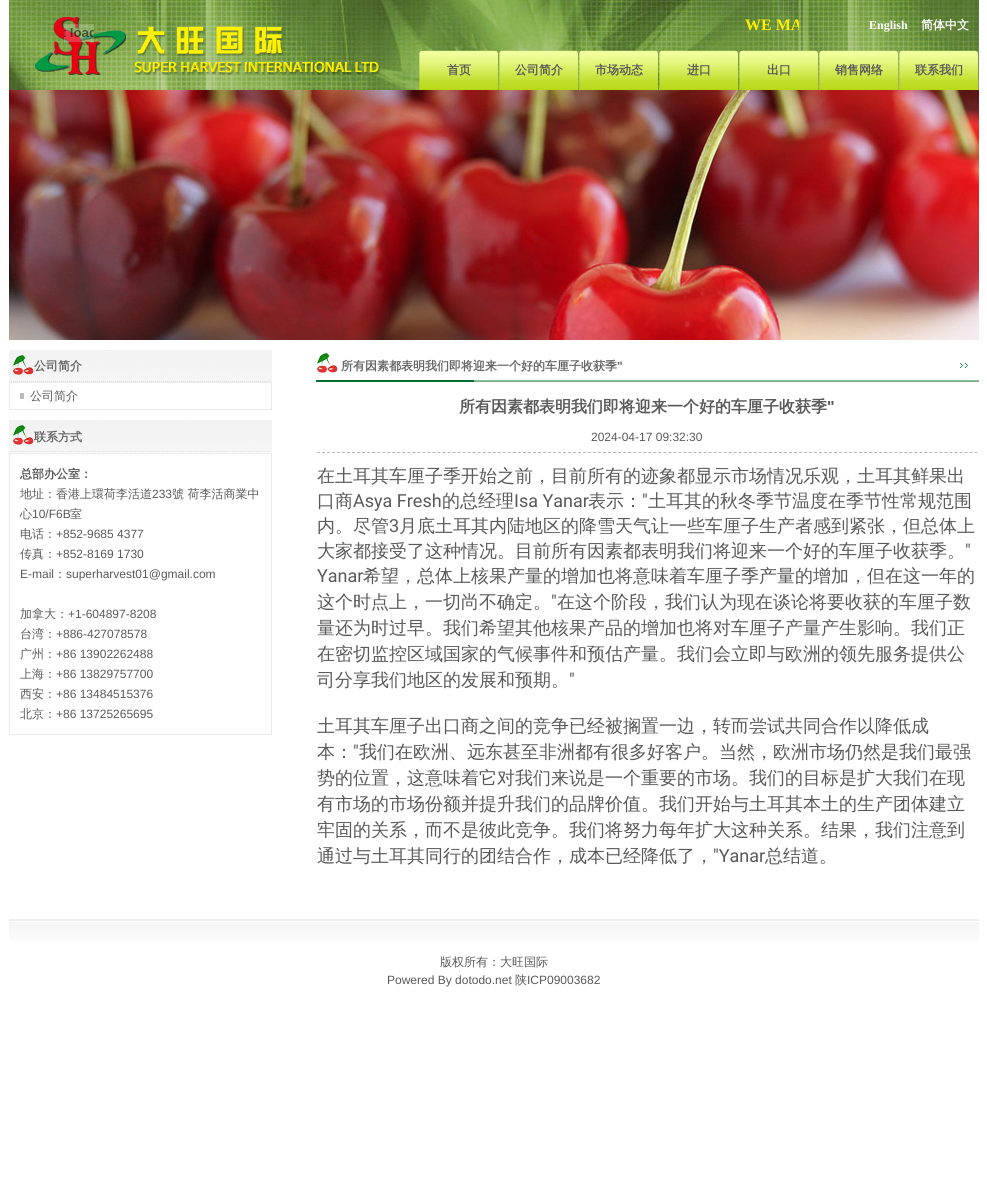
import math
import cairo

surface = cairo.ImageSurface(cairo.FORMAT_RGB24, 987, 1195)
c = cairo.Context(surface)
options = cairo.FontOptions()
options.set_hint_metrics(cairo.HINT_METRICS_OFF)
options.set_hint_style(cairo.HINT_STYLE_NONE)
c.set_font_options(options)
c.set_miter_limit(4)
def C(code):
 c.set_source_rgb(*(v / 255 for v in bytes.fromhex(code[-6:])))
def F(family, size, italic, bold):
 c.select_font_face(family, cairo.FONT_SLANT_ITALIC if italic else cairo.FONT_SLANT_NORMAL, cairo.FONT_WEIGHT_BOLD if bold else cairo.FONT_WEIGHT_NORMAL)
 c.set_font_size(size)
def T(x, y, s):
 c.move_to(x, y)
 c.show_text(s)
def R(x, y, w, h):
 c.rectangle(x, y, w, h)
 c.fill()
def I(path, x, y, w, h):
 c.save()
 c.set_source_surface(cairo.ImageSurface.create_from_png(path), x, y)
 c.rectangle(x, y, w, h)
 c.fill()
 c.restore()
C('ffffff')
c.paint()
I('1.png',9,0,970,90)
I('2.png',64,24,30,18)
c.save()
c.rectangle(399,16,400,18)
c.clip()
F('Liberation Serif',16,0,1)
C('fff000')
T(745,30,'WE MA')
c.restore()
F('Liberation Serif',12,0,1)
C('ffffff')
T(869,29,'English')
F('WenQuanYi Zen Hei',12,0,1)
T(921,29,'简体中文')
I('3.png',419,50,79,40)
C('5a5959')
T(447,74,'首页')
I('4.png',499,50,79,40)
T(515,74,'公司简介')
I('5.png',579,50,79,40)
T(595,74,'市场动态')
I('6.png',659,50,79,40)
T(687,74,'进口')
I('7.png',739,50,79,40)
T(767,74,'出口')
I('8.png',819,50,79,40)
T(835,74,'销售网络')
I('9.png',899,50,79,40)
T(915,74,'联系我们')
I('10.png',9,90,970,250)
I('11.png',9,350,263,32)
C('666666')
T(34,370,'公司简介')
c.rectangle(9.5,382.5,262,27)
C('eaeaea')
c.set_line_width(1)
c.stroke()
C('bcbcbc')
R(20,393,4,6)
F('WenQuanYi Zen Hei Medium',12,0,0)
C('5a5959')
T(30,400,'公司简介')
I('11.png',9,420,263,32)
F('WenQuanYi Zen Hei',12,0,1)
C('666666')
T(34,441,'联系方式')
c.rectangle(9.5,453.5,262,281)
C('eaeaea')
c.stroke()
C('5a5959')
T(20,478,'总部办公室：')
F('WenQuanYi Zen Hei Medium',12,0,0)
T(20,498,'地址：香港上環荷李活道')
F('Liberation Sans',12,0,0)
T(152,498,'233')
F('WenQuanYi Zen Hei Medium',12,0,0)
T(172,498,'號 荷李活商業中')
T(20,518,'心')
F('Liberation Sans',12,0,0)
T(32,518,'10/F6B')
F('WenQuanYi Zen Hei Medium',12,0,0)
T(70,518,'室')
T(20,538,'电话：')
F('Liberation Sans',12,0,0)
T(56,538,'+852-9685 4377')
F('WenQuanYi Zen Hei Medium',12,0,0)
T(20,558,'传真：')
F('Liberation Sans',12,0,0)
T(56,558,'+852-8169 1730')
T(20,578,'E-mail')
F('WenQuanYi Zen Hei Medium',12,0,0)
T(54,578,'：')
F('Liberation Sans',12,0,0)
T(66,578,'superharvest01@gmail.com')
F('WenQuanYi Zen Hei Medium',12,0,0)
T(20,618,'加拿大：')
F('Liberation Sans',12,0,0)
T(68,618,'+1-604897-8208')
F('WenQuanYi Zen Hei Medium',12,0,0)
T(20,638,'台湾：')
F('Liberation Sans',12,0,0)
T(56,638,'+886-427078578')
F('WenQuanYi Zen Hei Medium',12,0,0)
T(20,658,'广州：')
F('Liberation Sans',12,0,0)
T(56,658,'+86 13902262488')
F('WenQuanYi Zen Hei Medium',12,0,0)
T(20,678,'上海：')
F('Liberation Sans',12,0,0)
T(56,678,'+86 13829757700')
F('WenQuanYi Zen Hei Medium',12,0,0)
T(20,698,'西安：')
F('Liberation Sans',12,0,0)
T(56,698,'+86 13484515376')
F('WenQuanYi Zen Hei Medium',12,0,0)
T(20,718,'北京：')
F('Liberation Sans',12,0,0)
T(56,718,'+86 13725265695')
I('12.png',316,353,663,29)
F('WenQuanYi Zen Hei',12,0,1)
C('666666')
T(341,370,'所有因素都表明我们即将迎来一个好的车厘子收获季')
F('Liberation Sans',12,0,1)
T(617,370,'"')
F('WenQuanYi Zen Hei',16,0,1)
C('5a5959')
T(459,412,'所有因素都表明我们即将迎来一个好的车厘子收获季')
F('Liberation Sans',16,0,1)
T(827,412,'"')
c.new_path()
c.move_to(317,452.5)
c.line_to(977,452.5)
C('b8b4b5')
c.set_dash([3,2.02])
c.stroke()
F('Liberation Sans',12,0,0)
C('5a5959')
T(591,441,'2024-04-17 09:32:30')
F('WenQuanYi Zen Hei Medium',18,0,0)
T(317,482,'在土耳其车厘子季开始之前，目前所有的迹象都显示市场情况乐观，土耳其鲜果出')
T(317,507,'口商')
F('Roboto',18,0,0)
T(353,507,'Asya Fresh')
F('WenQuanYi Zen Hei Medium',18,0,0)
T(442,507,'的总经理')
F('Roboto',18,0,0)
T(514,507,'Isa Yanar')
F('WenQuanYi Zen Hei Medium',18,0,0)
T(588,507,'表示：')
F('Roboto',18,0,0)
T(642,507,'"')
F('WenQuanYi Zen Hei Medium',18,0,0)
T(648,507,'土耳其的秋冬季节温度在季节性常规范围')
T(317,532,'内。尽管')
F('Roboto',18,0,0)
T(389,532,'3')
F('WenQuanYi Zen Hei Medium',18,0,0)
T(399,532,'月底土耳其内陆地区的降雪天气让一些车厘子生产者感到紧张，但总体上')
T(317,557,'大家都接受了这种情况。目前所有因素都表明我们将迎来一个好的车厘子收获季。')
F('Roboto',18,0,0)
T(965,557,'"')
T(317,582,'Yanar')
F('WenQuanYi Zen Hei Medium',18,0,0)
T(363,582,'希望，总体上核果产量的增加也将意味着车厘子季产量的增加，但在这一年的')
T(317,608,'这个时点上，一切尚不确定。')
F('Roboto',18,0,0)
T(551,608,'"')
F('WenQuanYi Zen Hei Medium',18,0,0)
T(557,608,'在这个阶段，我们认为现在谈论将要收获的车厘子数')
T(317,634,'量还为时过早。我们希望其他核果产品的增加也将对车厘子产量产生影响。我们正')
T(317,660,'在密切监控区域国家的气候事件和预估产量。我们会立即与欧洲的领先服务提供公')
T(317,686,'司分享我们地区的发展和预期。')
F('Roboto',18,0,0)
T(569,686,'"')
F('WenQuanYi Zen Hei Medium',18,0,0)
T(317,732,'土耳其车厘子出口商之间的竞争已经被搁置一边，转而尝试共同合作以降低成')
T(317,758,'本：')
F('Roboto',18,0,0)
T(353,758,'"')
F('WenQuanYi Zen Hei Medium',18,0,0)
T(359,758,'我们在欧洲、远东甚至非洲都有很多好客户。当然，欧洲市场仍然是我们最强')
T(317,784,'势的位置，这意味着它对我们来说是一个重要的市场。我们的目标是扩大我们在现')
T(317,810,'有市场的市场份额并提升我们的品牌价值。我们开始与土耳其本土的生产团体建立')
T(317,836,'牢固的关系，而不是彼此竞争。我们将努力每年扩大这种关系。结果，我们注意到')
T(317,862,'通过与土耳其同行的团结合作，成本已经降低了，')
F('Roboto',18,0,0)
T(713,862,'"Yanar')
F('WenQuanYi Zen Hei Medium',18,0,0)
T(765,862,'总结道。')
I('13.png',9,919,970,22)
F('WenQuanYi Zen Hei Medium',12,0,0)
T(440,966,'版权所有：大旺国际')
F('Liberation Sans',12,0,0)
T(387,984,'Powered By dotodo.net')
F('WenQuanYi Zen Hei Medium',12,0,0)
T(515,984,'陕')
F('Liberation Sans',12,0,0)
T(527,984,'ICP09003682')
surface.write_to_png('o.png')
